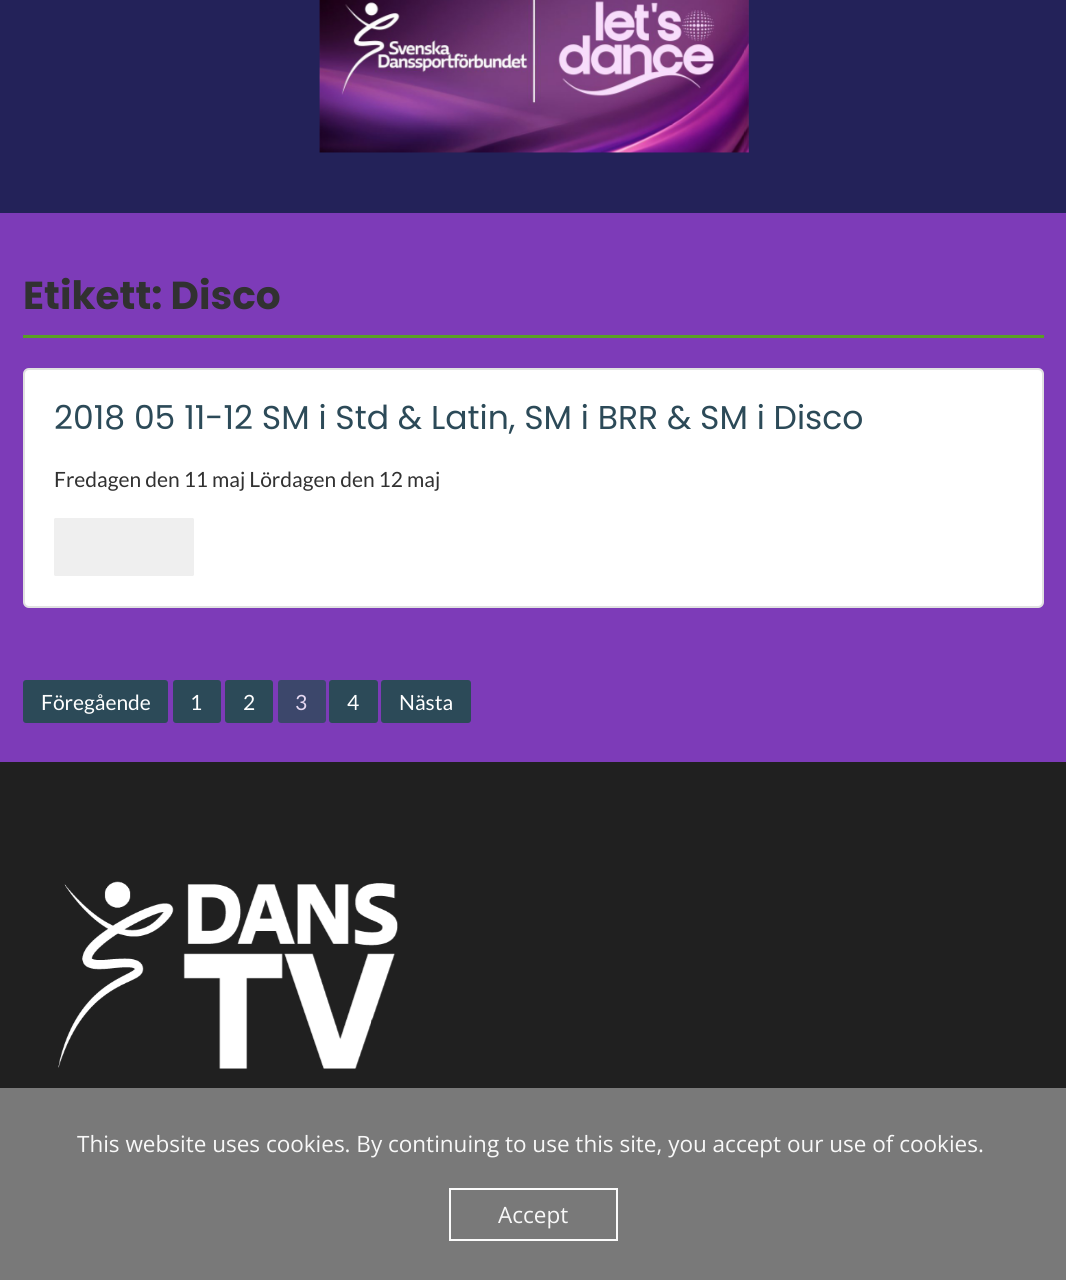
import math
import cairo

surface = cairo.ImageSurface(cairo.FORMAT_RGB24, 1066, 1280)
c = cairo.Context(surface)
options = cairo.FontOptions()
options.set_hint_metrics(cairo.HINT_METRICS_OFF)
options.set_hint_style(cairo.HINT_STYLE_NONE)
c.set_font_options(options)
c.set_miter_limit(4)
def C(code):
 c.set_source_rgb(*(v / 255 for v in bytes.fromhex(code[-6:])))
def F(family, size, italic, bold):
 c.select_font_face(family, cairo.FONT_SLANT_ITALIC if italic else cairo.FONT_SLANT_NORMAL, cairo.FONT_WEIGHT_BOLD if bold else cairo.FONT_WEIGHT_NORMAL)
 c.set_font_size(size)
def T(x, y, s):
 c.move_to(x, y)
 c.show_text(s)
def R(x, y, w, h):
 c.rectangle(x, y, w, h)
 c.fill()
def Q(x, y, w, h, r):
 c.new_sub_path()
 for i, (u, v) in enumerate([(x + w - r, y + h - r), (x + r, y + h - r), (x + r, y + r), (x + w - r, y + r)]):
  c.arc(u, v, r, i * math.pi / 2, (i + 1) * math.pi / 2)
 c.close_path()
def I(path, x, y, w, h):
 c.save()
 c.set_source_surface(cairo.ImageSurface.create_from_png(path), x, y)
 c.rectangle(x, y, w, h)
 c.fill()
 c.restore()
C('7d3bb8')
c.paint()
C('232259')
R(0,0,1066,213)
I('1.png',319,0,430,153)
C('5a9e25')
R(23,335,1021,3)
F('Poppins',39,0,1)
C('313131')
T(23,309,'Etikett: Disco')
C('ffffff')
Q(23,368,1021,240,6)
c.fill()
Q(24,369,1019,238,5)
c.set_source_rgba(0,0,0,0.12)
c.stroke()
F('Poppins',33,0,0)
C('2c4a58')
T(54,429,'2018 05 11-12 SM i Std & Latin, SM i BRR & SM i Disco')
F('Lato',21,0,0)
C('313131')
T(54,487,'Fredagen den 11 maj Lördagen den 12 maj')
C('efefef')
Q(54,518,140,58,1.5)
c.fill()
C('2c4a58')
Q(23,680,145,43,3)
c.fill()
C('ffffff')
T(41,710,'Föregående')
C('2c4a58')
Q(173,680,48,43,3)
c.fill()
C('ffffff')
T(190,710,'1')
C('2c4a58')
Q(225,680,48,43,3)
c.fill()
C('ffffff')
T(243,710,'2')
C('3c476b')
Q(278,680,48,43,3)
c.fill()
C('e5d8f1')
T(295,710,'3')
C('2c4a58')
Q(329,680,49,43,3)
c.fill()
C('ffffff')
T(347,710,'4')
C('2c4a58')
Q(381,680,90,43,3)
c.fill()
C('ffffff')
T(399,710,'Nästa')
C('202020')
R(0,762,1066,326)
C('797979')
R(0,1088,1066,192)
I('2.png',58,881,340,188)
F('Open Sans',22.5,0,0)
C('f8f8f8')
T(77,1152,'This website uses cookies. By continuing to use this site, you accept our use of cookies.')
c.rectangle(450,1189,167,51)
C('fbfbfb')
c.stroke()
C('f8f8f8')
T(498,1223,'Accept')
surface.write_to_png('o.png')
